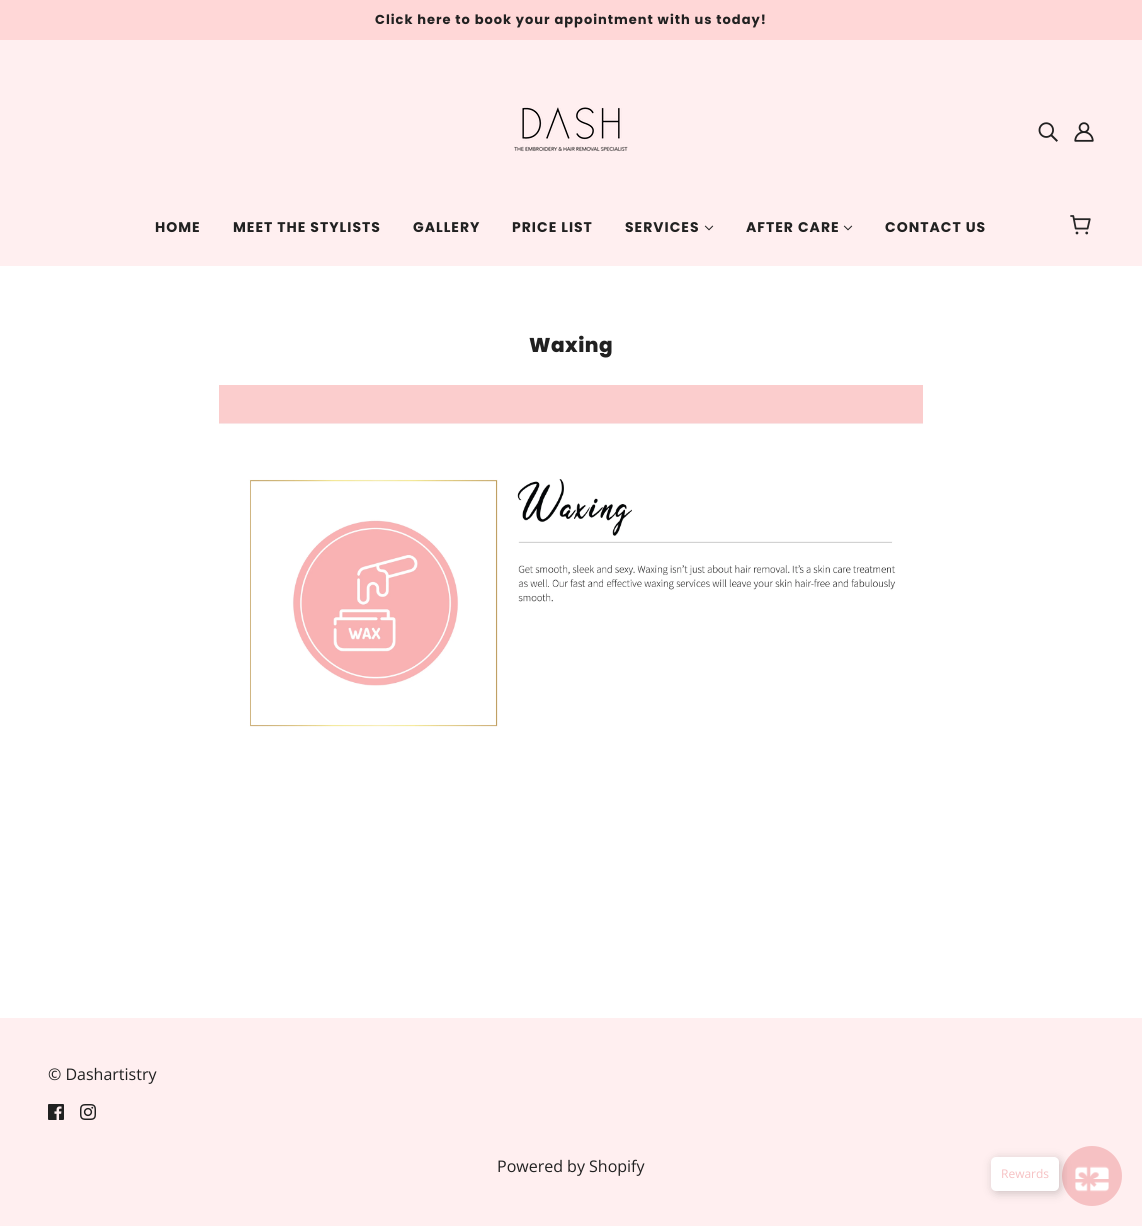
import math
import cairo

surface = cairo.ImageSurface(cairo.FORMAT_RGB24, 1142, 1226)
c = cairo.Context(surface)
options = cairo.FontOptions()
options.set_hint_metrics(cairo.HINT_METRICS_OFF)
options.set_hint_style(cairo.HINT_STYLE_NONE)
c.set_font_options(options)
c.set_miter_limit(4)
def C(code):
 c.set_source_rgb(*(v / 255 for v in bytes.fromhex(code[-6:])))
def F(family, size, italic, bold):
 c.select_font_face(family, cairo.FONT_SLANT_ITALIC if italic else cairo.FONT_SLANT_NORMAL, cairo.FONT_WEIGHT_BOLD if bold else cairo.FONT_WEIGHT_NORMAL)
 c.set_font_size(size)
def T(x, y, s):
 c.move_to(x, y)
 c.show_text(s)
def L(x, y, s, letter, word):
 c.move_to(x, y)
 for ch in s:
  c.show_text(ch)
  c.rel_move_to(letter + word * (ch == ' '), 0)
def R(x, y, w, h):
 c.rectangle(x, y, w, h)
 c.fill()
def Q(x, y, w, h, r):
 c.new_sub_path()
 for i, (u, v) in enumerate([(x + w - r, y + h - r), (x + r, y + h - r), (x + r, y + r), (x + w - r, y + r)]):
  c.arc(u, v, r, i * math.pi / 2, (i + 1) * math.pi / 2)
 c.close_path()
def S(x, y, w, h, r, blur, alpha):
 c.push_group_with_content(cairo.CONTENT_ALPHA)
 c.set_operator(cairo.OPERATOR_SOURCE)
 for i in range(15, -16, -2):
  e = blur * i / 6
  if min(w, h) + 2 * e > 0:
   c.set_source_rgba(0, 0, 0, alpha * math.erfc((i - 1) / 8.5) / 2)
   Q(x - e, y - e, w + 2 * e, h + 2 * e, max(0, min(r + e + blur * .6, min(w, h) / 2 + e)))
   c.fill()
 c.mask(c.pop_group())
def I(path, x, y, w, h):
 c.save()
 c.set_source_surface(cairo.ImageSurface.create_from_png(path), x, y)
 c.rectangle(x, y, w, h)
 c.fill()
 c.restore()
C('ffffff')
c.paint()
C('ffd7d7')
R(0,0,1142,40)
F('Poppins',13,0,1)
C('212121')
L(375,24,'Click here to book your appointment with us today!',1,0)
C('ffeff0')
R(0,40,1142,226)
I('1.png',514,107,114,45)
I('2.png',1038,122,20,20)
I('3.png',1074,122,20,20)
F('Poppins',14,0,1)
C('212121')
L(155,232,'HOME',1,0)
L(233,232,'MEET THE STYLISTS',1,0)
L(413,232,'GALLERY',1,0)
L(512,232,'PRICE LIST',1,0)
L(625,232,'SERVICES',1,0)
I('4.png',704,225,10,6)
L(746,232,'AFTER CARE',1,0)
I('4.png',843,225,10,6)
L(885,232,'CONTACT US',1,0)
I('5.png',1070,215,21,20)
F('Poppins ExtraBold',20,0,0)
L(529,352,'Waxing',.5,0)
I('6.png',219,385,704,342)
C('ffeff0')
R(0,1018,1142,208)
F('Open Sans',16,0,0)
C('212121')
T(48,1080,'© Dashartistry')
I('7.png',48,1104,16,16)
I('8.png',80,1104,16,16)
T(497,1172,'Powered by Shopify')
C('f6c1c3')
c.new_path()
c.arc(1092,1176,30,0,2 * math.pi)
c.fill()
I('9.png',1075,1166,34,26)
C('000000')
S(993,1159,68,34,5,5,.2)
C('ffffff')
Q(991,1157,68,34,5)
c.fill()
F('Open Sans',12,0,0)
C('f6c1c3')
T(1001,1178,'Rewards')
surface.write_to_png('o.png')
